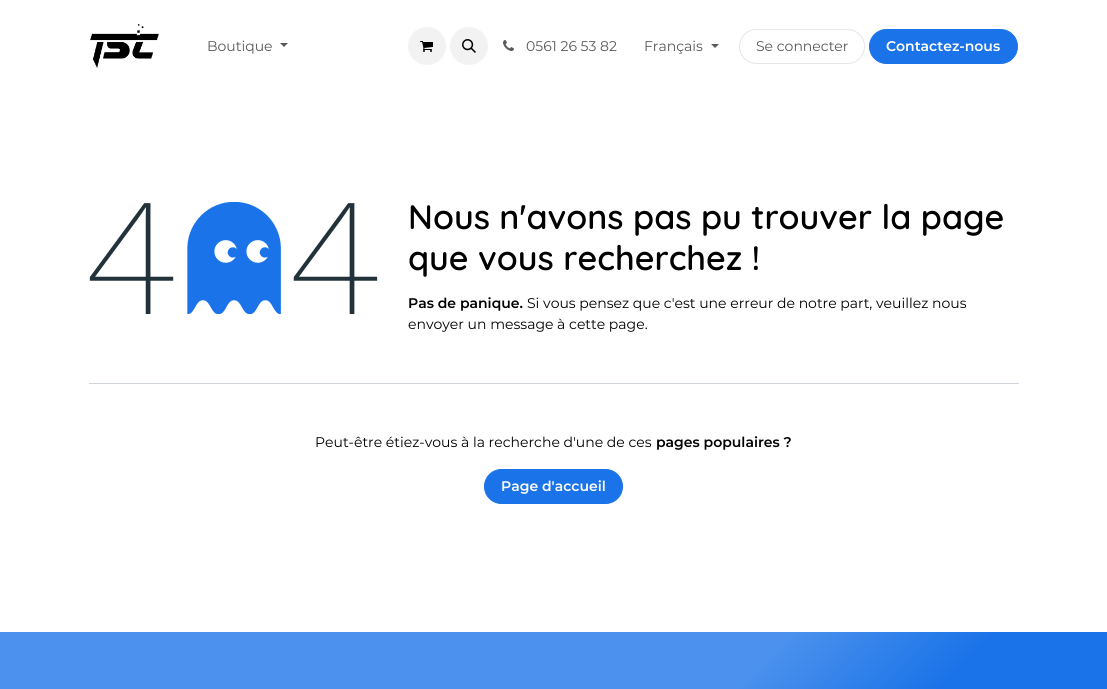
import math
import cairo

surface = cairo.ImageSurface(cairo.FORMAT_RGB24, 1107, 689)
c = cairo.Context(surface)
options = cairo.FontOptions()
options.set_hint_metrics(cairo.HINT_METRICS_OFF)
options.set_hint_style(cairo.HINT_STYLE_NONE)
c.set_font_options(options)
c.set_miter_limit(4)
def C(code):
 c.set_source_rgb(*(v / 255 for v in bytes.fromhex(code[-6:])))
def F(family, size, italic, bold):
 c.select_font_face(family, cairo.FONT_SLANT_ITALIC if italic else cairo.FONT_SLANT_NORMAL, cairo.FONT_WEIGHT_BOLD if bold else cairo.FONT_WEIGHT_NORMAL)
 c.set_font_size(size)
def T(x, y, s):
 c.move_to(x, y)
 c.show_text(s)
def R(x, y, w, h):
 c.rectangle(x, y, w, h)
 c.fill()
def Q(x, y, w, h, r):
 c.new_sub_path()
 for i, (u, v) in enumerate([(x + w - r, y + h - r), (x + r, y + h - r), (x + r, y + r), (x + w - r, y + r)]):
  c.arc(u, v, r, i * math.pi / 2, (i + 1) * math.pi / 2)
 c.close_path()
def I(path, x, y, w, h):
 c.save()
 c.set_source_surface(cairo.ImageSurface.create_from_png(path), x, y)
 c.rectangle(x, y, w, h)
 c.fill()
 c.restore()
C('ffffff')
c.paint()
I('1.png',90,24,69,44)
F('Montserrat',14,0,0)
C('595959')
T(207,51,'Boutique')
c.new_path()
c.move_to(280,43)
c.line_to(288,43)
c.line_to(284,47)
c.close_path()
c.fill()
C('f2f2f2')
c.arc(427,46,19,0,2 * math.pi)
c.fill()
I('2.png',420,41,13,11)
c.arc(469,46,19,0,2 * math.pi)
c.fill()
I('3.png',462,39,14,14)
I('4.png',503,40,11,11)
C('595959')
T(526,51,'0561 26 53 82')
T(644,51,'Français')
c.new_path()
c.move_to(711,44)
c.line_to(719,44)
c.line_to(715,48)
c.close_path()
c.fill()
Q(739.5,29.5,125,34,17)
C('e6e6e6')
c.set_line_width(1)
c.stroke()
C('595959')
T(756,51,'Se connecter')
C('1a73e8')
Q(869.5,29.5,148,34,17)
c.fill_preserve()
c.stroke()
F('Montserrat SemiBold',14,0,0)
C('ffffff')
T(886,51,'Contactez-nous')
I('5.png',89,202,289,112)
F('Quicksand SemiBold',34,0,0)
C('000000')
T(408,229,'Nous n\'avons pas pu trouver la page')
T(408,270,'que vous recherchez !')
F('Montserrat SemiBold',14,0,0)
T(408,308,'Pas de panique.')
F('Montserrat',14,0,0)
T(527,308,'Si vous pensez que c\'est une erreur de notre part, veuillez nous')
T(408,329,'envoyer un message à cette page.')
C('ced4da')
R(89,383,930,1)
C('000000')
T(315,447,'Peut-être étiez-vous à la recherche d\'une de ces')
F('Montserrat SemiBold',14,0,0)
T(656,447,'pages populaires ?')
C('1a73e8')
Q(484.5,469.5,138,34,17)
c.fill_preserve()
c.stroke()
C('ffffff')
T(501,491,'Page d\'accueil')
gradient = cairo.LinearGradient(165,467,942,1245)
gradient.add_color_stop_rgba(.51,0.294,0.569,0.929,1)
gradient.add_color_stop_rgba(.64,0.102,0.451,0.91,1)
c.set_source(gradient)
R(0,632,1107,57)
surface.write_to_png('o.png')
